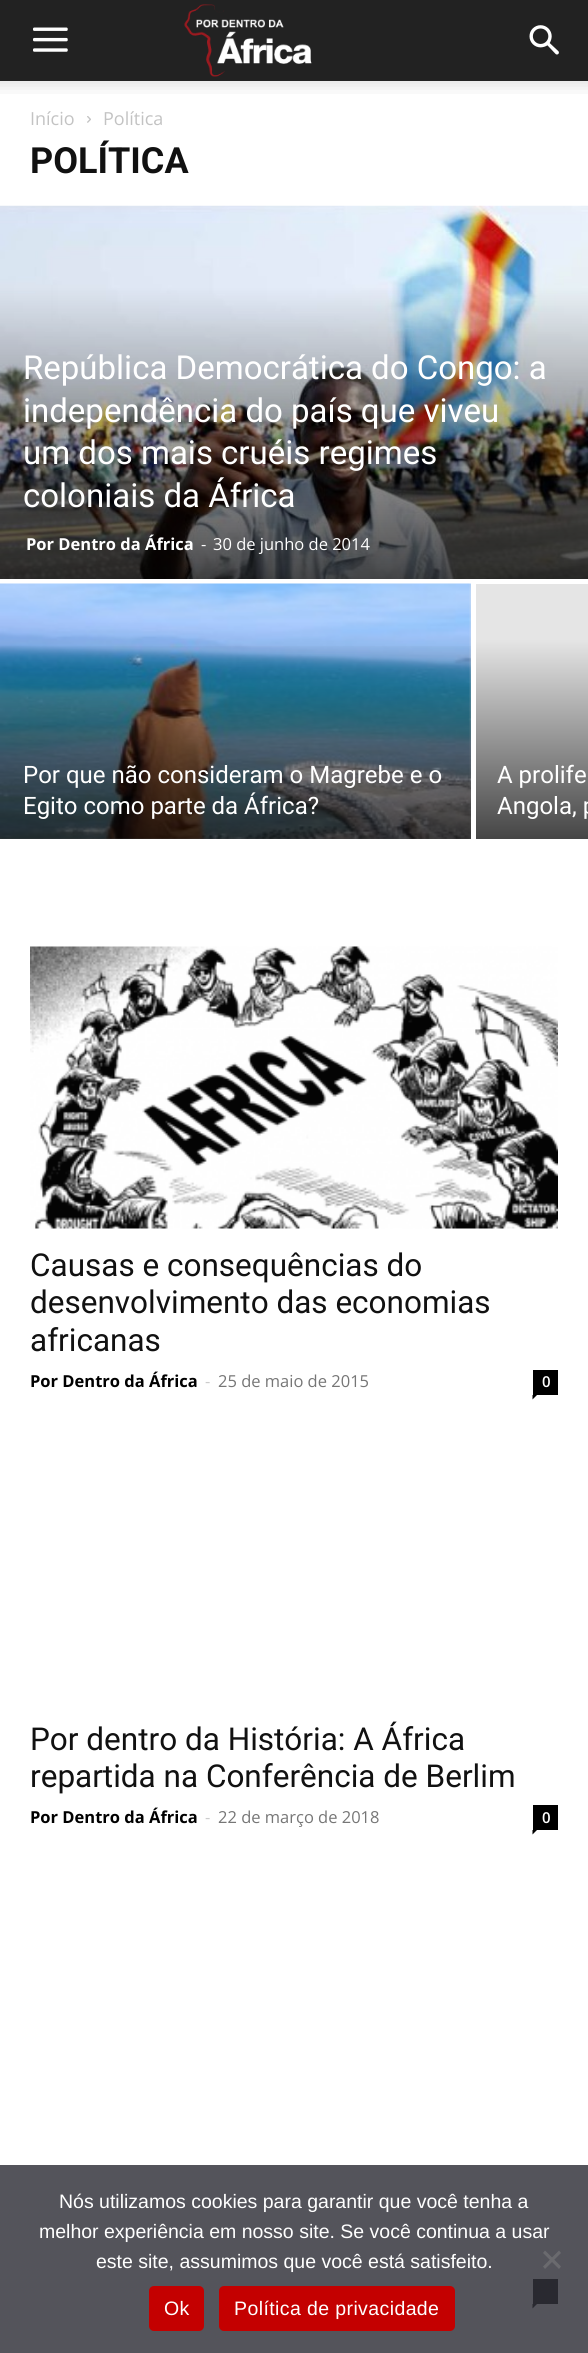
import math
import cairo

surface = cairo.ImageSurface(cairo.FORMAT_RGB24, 588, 2353)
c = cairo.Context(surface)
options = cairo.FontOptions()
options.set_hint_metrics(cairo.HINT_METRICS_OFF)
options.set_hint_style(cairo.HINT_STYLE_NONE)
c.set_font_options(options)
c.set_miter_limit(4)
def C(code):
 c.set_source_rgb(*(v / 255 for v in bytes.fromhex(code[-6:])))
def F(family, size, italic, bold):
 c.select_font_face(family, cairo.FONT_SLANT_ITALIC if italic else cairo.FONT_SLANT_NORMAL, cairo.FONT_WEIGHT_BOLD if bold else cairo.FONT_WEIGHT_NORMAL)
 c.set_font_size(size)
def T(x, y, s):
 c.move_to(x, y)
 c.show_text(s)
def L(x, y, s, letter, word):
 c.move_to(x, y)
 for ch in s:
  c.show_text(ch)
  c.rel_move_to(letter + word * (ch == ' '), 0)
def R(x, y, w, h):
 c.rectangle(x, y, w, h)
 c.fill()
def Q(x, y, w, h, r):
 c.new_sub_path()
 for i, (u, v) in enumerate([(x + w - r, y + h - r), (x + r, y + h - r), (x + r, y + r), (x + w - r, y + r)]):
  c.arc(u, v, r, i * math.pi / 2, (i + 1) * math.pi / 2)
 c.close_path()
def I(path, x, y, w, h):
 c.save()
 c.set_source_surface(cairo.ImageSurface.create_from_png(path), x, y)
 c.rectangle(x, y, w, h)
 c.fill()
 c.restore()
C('ffffff')
c.paint()
C('222222')
R(0,0,588,81)
I('1.png',33,27,35,25)
I('2.png',184,4,128,73)
I('3.png',529,25,30,30)
I('4.png',0,81,588,13)
F('Open Sans',18,0,0)
C('c3c3c3')
T(30,125,'Início')
I('5.png',87,116,4,7)
T(103,125,'Política')
F('Roboto',36,0,1)
C('111111')
T(30,173,'POLÍTICA')
I('6.png',0,205,588,374)
F('Roboto',33,0,0)
C('ffffff')
T(23,379,'República Democrática do Congo: a')
T(23,422,'independência do país que viveu')
T(23,464,'um dos mais cruéis regimes')
T(23,507,'coloniais da África')
F('Open Sans',16.5,0,1)
T(26,550,'Por Dentro da África')
F('Open Sans',16.5,0,0)
T(201,550,'-')
T(213,550,'30 de junho de 2014')
C('e5e5e5')
R(0,584,471,255)
I('7.png',0,583,471,256)
gradient = cairo.LinearGradient(236,507,236,839)
gradient.add_color_stop_rgba(.4,0,0,0,0)
gradient.add_color_stop_rgba(1,0,0,0,.7)
c.set_source(gradient)
R(0,646,471,193)
F('Roboto',24,0,0)
C('ffffff')
T(23,783,'Por que não consideram o Magrebe e o')
T(23,814,'Egito como parte da África?')
gradient = cairo.LinearGradient(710,507,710,839)
gradient.add_color_stop_rgba(.4,0.898,0.898,0.898,1)
gradient.add_color_stop_rgba(1,0.271,0.271,0.271,1)
c.set_source(gradient)
R(476,584,112,255)
C('ffffff')
T(497,783,'A prolife')
T(497,814,'Angola, p')
I('8.png',30,946,528,283)
F('Roboto',31.5,0,0)
C('111111')
T(30,1276,'Causas e consequências do')
T(30,1313,'desenvolvimento das economias')
T(30,1351,'africanas')
F('Open Sans',16.5,0,1)
C('000000')
T(30,1387,'Por Dentro da África')
F('Open Sans',16.5,0,0)
C('cccccc')
T(205,1387,'-')
C('767676')
T(218,1387,'25 de maio de 2015')
C('000000')
R(533,1370,25,25)
F('Open Sans SemiBold',15,0,0)
C('ffffff')
T(542,1387,'0')
C('000000')
c.new_path()
c.move_to(532.5,1395)
c.line_to(537,1395)
c.line_to(532.5,1399.5)
c.close_path()
c.fill()
F('Roboto',31.5,0,0)
C('111111')
T(30,1750,'Por dentro da História: A África')
T(30,1787,'repartida na Conferência de Berlim')
F('Open Sans',16.5,0,1)
C('000000')
T(30,1823,'Por Dentro da África')
F('Open Sans',16.5,0,0)
C('cccccc')
T(205,1823,'-')
C('767676')
T(218,1823,'22 de março de 2018')
C('000000')
R(533,1805,25,25)
F('Open Sans SemiBold',15,0,0)
C('ffffff')
T(542,1823,'0')
C('000000')
c.new_path()
c.move_to(532.5,1830)
c.line_to(537,1830)
c.line_to(532.5,1834.5)
c.close_path()
c.fill()
R(533,2279,25,25)
c.new_path()
c.move_to(532.5,2304)
c.line_to(537,2304)
c.line_to(532.5,2308.5)
c.close_path()
c.fill()
c.set_source_rgba(0.196,0.196,0.227,0.83)
R(0,2165,588,188)
F('Liberation Sans',19.5,0,0)
C('ffffff')
T(59,2208,'Nós utilizamos cookies para garantir que você tenha a')
T(39,2238,'melhor experiência em nosso site. Se você continua a usar')
T(96,2268,'este site, assumimos que você está satisfeito.')
C('6a6a6e')
c.new_path()
c.move_to(559,2250.5)
c.line_to(561,2253)
c.line_to(545,2269)
c.line_to(543,2266.5)
c.close_path()
c.fill()
c.new_path()
c.move_to(543,2253)
c.line_to(545,2250.5)
c.line_to(561,2266.5)
c.line_to(559,2269)
c.close_path()
c.fill()
C('c40000')
Q(149,2286,55,45,5)
c.fill()
C('ffffff')
L(164,2315,'Ok',.4,0)
C('c40000')
Q(219,2286,236,45,5)
c.fill()
C('ffffff')
L(234,2315,'Política de privacidade',.4,0)
surface.write_to_png('o.png')
